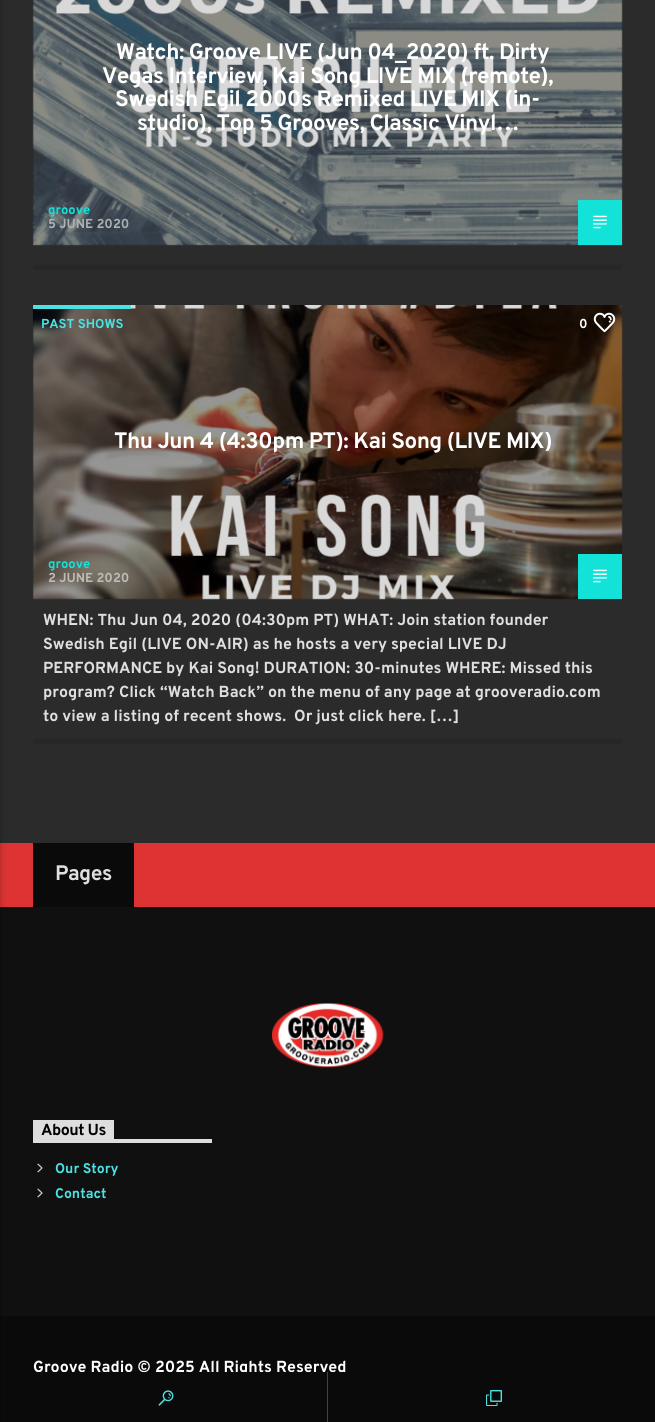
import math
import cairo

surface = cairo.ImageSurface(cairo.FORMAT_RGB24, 655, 1422)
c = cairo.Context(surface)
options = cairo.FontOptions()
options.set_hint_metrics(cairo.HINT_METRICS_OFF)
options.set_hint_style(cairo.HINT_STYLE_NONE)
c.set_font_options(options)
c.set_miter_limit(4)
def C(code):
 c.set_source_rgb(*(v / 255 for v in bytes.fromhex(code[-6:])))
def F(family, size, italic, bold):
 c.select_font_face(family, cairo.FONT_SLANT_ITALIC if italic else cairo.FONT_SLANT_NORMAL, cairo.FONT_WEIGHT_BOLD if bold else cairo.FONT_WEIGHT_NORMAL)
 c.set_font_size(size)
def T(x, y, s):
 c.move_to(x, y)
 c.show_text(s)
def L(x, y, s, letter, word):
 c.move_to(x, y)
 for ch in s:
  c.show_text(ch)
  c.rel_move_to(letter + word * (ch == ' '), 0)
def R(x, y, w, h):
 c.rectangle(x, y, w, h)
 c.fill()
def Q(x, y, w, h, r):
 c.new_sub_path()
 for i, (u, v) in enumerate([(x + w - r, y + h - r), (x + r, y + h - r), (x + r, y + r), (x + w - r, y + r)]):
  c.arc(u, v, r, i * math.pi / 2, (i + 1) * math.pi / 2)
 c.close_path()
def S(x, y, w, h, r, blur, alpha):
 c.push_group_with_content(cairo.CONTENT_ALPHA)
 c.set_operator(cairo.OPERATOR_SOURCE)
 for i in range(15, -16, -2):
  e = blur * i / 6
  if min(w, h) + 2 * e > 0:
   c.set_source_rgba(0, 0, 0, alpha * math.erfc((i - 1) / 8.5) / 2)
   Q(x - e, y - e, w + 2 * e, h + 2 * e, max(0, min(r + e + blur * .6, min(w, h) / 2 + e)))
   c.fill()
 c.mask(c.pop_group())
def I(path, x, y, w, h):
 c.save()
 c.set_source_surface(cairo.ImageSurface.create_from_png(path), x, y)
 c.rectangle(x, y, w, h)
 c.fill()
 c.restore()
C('2b2b2b')
c.paint()
C('dd3333')
R(0,843,655,64)
C('101010')
R(0,907,655,409)
C('0a0a0a')
R(0,1316,655,56)
F('Overpass',16,0,1)
C('ffffff')
T(33,1372,'Groove Radio © 2025 All Rights Reserved')
C('0a0a0a')
R(0,1372,655,50)
C('000000')
S(-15,2,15,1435,0,5,.12)
S(-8,2,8,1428,0,2.5,.16)
C('000000')
R(33,0,589,245)
I('1.png',32,0,591,246)
F('Overpass',22.4,0,1)
C('ffffff')
L(116,59,'Watch: Groove LIVE (Jun 04_2020) ft. Dirty',-.55,0)
L(102,83,'Vegas Interview, Kai Song LIVE MIX (remote),',-.55,0)
L(115,106,'Swedish Egil 2000s Remixed LIVE MIX (in-',-.55,0)
L(137,130,'studio), Top 5 Grooves, Classic Vinyl…',-.55,0)
F('Overpass',13,0,1)
C('12e2d8')
T(48,214,'groove')
C('adb1b4')
T(48,228,'5 JUNE 2020')
C('12e2d8')
R(578,200,44,45)
I('2.png',593,215,14,14)
C('272727')
R(33,265,589,5)
C('000000')
R(33,305,589,294)
I('3.png',32,305,591,295)
C('4ae2e2')
R(33,305,98,4)
T(41,328,'PAST SHOWS')
C('ffffff')
T(579,328,'0')
I('4.png',593,312,23,21)
F('Overpass',22.4,0,1)
L(114,448,'Thu Jun 4 (4:30pm PT): Kai Song (LIVE MIX)',-.55,0)
F('Overpass',13,0,1)
C('12e2d8')
T(48,568,'groove')
C('bfbcb7')
T(48,582,'2 JUNE 2020')
C('12e2d8')
R(578,554,44,45)
I('2.png',593,569,14,14)
C('272727')
R(33,739,589,5)
F('Overpass',16,0,1)
C('dfdfdf')
T(43,625,'WHEN: Thu Jun 04, 2020 (04:30pm PT) WHAT: Join station founder')
T(43,649,'Swedish Egil (LIVE ON-AIR) as he hosts a very special LIVE DJ')
T(43,673,'PERFORMANCE by Kai Song! DURATION: 30-minutes WHERE: Missed this')
T(43,697,'program? Click “Watch Back” on the menu of any page at grooveradio.com')
T(43,721,'to view a listing of recent shows.  Or just click here. […]')
C('0a0a0a')
R(33,843,101,64)
F('Overpass',21,0,1)
C('dfdfdf')
L(55,880,'Pages',-.5,0)
I('5.png',272,1003,112,65)
C('dedede')
R(33,1139,179,4)
R(33,1120,81,19)
F('Overpass',16,0,1)
C('000000')
L(41,1135,'About Us',-.5,0)
I('6.png',37,1163,6,10)
F('Overpass',14,0,1)
C('4ae2e2')
T(55,1173,'Our Story')
I('6.png',37,1188,6,10)
T(55,1198,'Contact')
C('434343')
R(327,1372,1,50)
I('7.png',158,1390,16,16)
I('8.png',486,1390,16,16)
surface.write_to_png('o.png')
